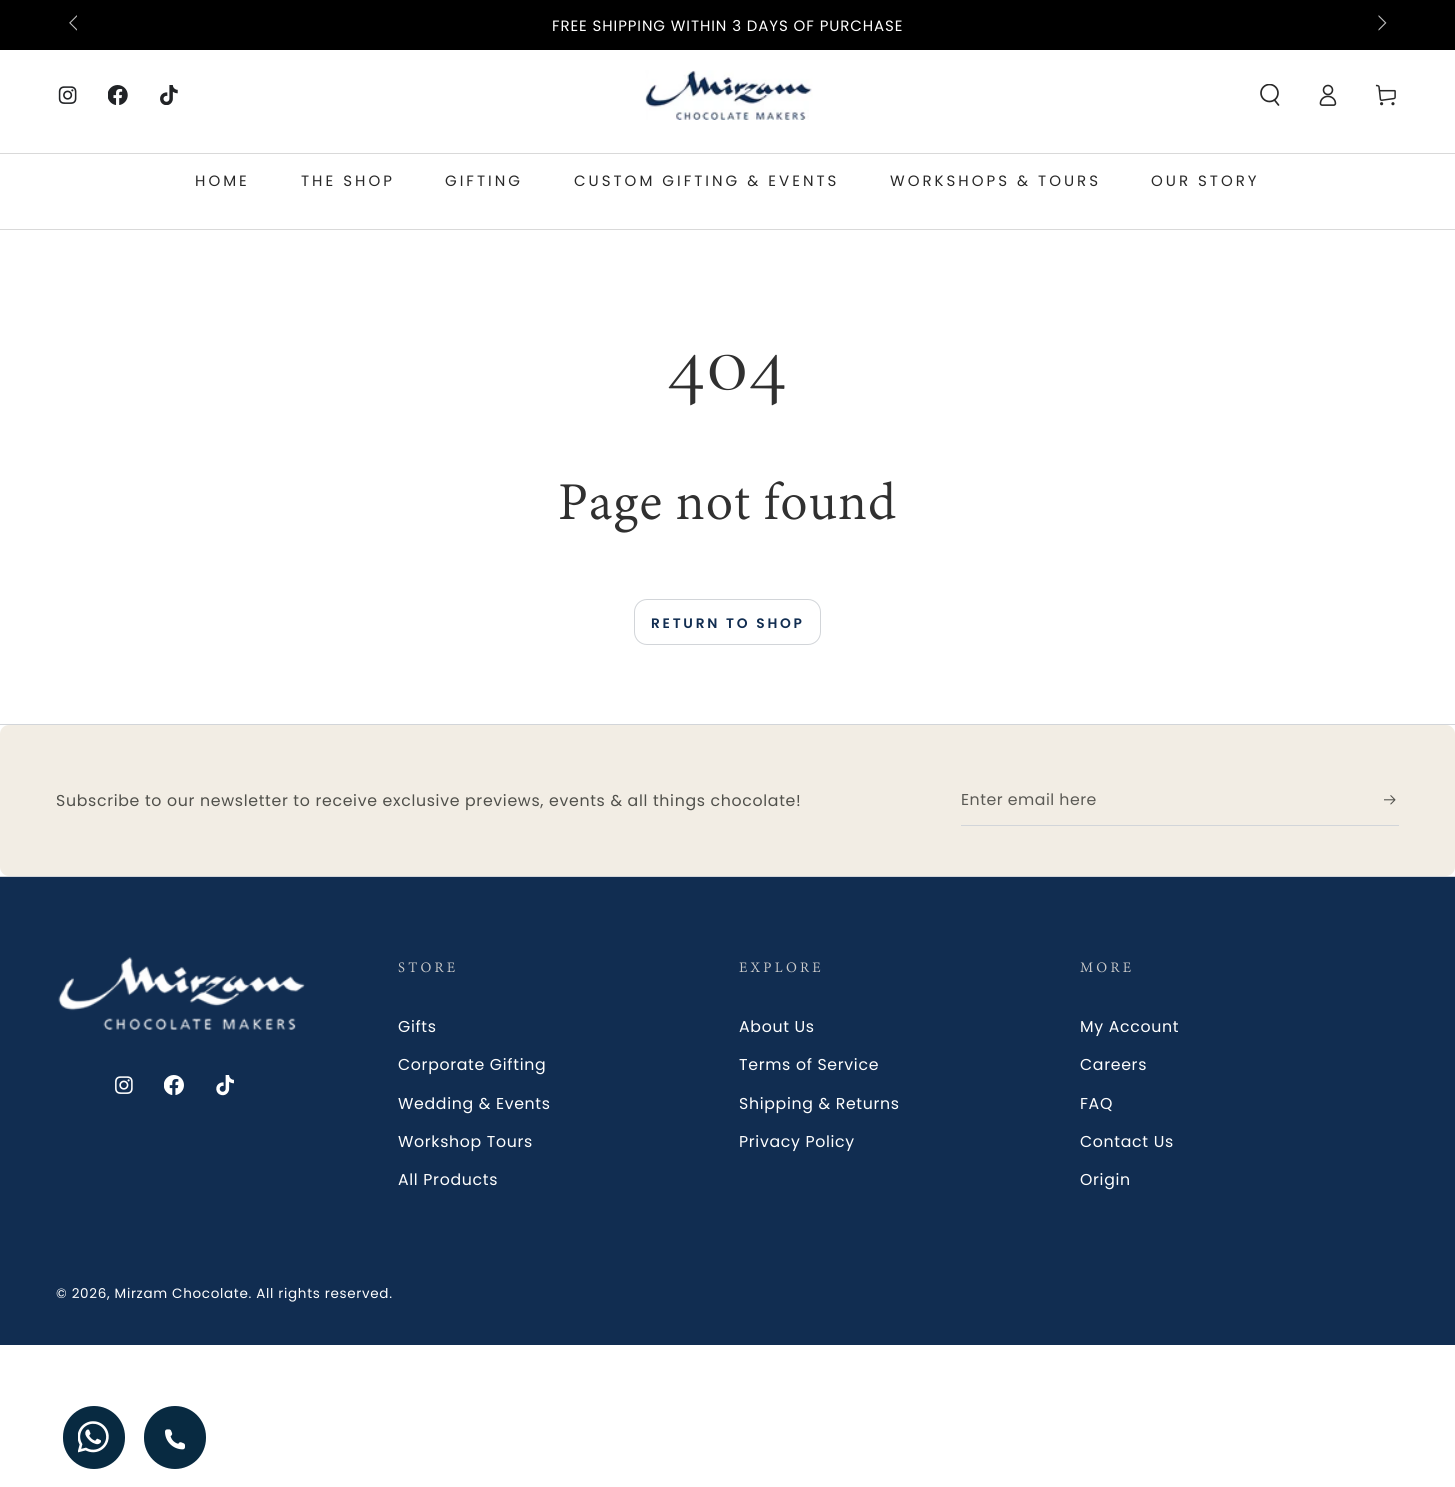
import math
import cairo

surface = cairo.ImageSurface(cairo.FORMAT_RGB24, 1455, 1487)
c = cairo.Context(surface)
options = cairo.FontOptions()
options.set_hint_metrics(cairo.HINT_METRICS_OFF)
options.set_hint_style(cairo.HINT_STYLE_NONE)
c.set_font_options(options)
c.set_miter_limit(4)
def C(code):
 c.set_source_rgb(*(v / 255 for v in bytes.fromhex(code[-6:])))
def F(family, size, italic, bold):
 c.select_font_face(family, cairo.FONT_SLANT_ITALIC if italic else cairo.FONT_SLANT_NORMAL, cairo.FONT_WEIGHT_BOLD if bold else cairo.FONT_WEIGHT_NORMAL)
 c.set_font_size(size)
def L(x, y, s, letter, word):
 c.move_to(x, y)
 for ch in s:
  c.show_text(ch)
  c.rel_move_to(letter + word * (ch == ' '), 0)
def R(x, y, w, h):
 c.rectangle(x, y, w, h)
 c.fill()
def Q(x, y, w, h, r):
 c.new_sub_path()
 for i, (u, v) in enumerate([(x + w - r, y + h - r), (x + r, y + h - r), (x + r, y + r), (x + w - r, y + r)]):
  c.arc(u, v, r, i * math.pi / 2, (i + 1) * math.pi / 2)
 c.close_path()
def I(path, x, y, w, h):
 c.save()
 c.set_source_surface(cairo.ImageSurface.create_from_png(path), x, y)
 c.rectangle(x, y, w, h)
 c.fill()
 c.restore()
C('ffffff')
c.paint()
C('000000')
R(0,0,1455,50)
I('1.png',69,15,8,16)
I('2.png',1378,15,9,16)
F('Poppins',15,0,0)
C('ffffff')
L(552,31,'FREE SHIPPING WITHIN 3 DAYS OF PURCHASE',.9,0)
C('d9d9d9')
R(0,229,1455,1)
R(0,153,1455,1)
I('3.png',58,86,19,18)
I('4.png',108,85,20,20)
I('5.png',160,85,18,20)
I('6.png',645,70,168,50)
c.save()
c.rectangle(1259,84,22,22)
c.clip()
c.arc(1269.5,93,8.5,0,2 * math.pi)
C('282828')
c.set_line_width(1.7)
c.stroke()
c.restore()
c.new_path()
c.move_to(1274.5,100)
c.line_to(1278.5,105)
C('282828')
c.set_line_width(1.7)
c.set_line_cap(cairo.LINE_CAP_ROUND)
c.stroke()
I('7.png',1319,84,18,22)
I('8.png',1375,84,21,22)
L(195,186,'HOME',3,0)
L(301,186,'THE SHOP',3,0)
L(445,186,'GIFTING',3,0)
L(574,186,'CUSTOM GIFTING & EVENTS',3,0)
L(890,186,'WORKSHOPS & TOURS',3,0)
L(1151,186,'OUR STORY',3,0)
F('Cormorant',86,0,0)
C('303030')
L(667,389,'404',.9,0)
F('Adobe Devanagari',57.5,0,0)
L(558,519,'Page not found',.9,0)
Q(634.5,599.5,186,45,12.5)
C('d2d5d9')
c.set_line_width(1)
c.set_line_cap(cairo.LINE_CAP_BUTT)
c.stroke()
F('Poppins SemiBold',13.75,0,0)
C('112d51')
L(651,628,'RETURN TO SHOP',2.75,0)
C('d2d5d9')
R(0,724,1455,1)
C('f2ede4')
Q(0,725,1455,151,9)
c.fill()
F('Poppins',15.75,0,0)
C('50504b')
L(56,806,'Subscribe to our newsletter to receive exclusive previews, events & all things chocolate!',.68,0)
C('d2d5d9')
R(961,825,438,1)
C('5b5a55')
L(961,805,'Enter email here',.5,0)
I('9.png',1384,795,12,10)
C('112d51')
R(0,877,1455,468)
C('d2d5d9')
R(0,876,1455,1)
I('10.png',58,957,247,73)
I('11.png',115,1076,18,18)
I('12.png',164,1075,20,20)
I('13.png',216,1075,18,21)
F('Adobe Devanagari',15.75,0,0)
C('cbcbcb')
L(398,972,'STORE',3.25,0)
F('Poppins',15.75,0,0)
C('ffffff')
L(398,1032,'Gifts',.68,0)
L(398,1070,'Corporate Gifting',.68,0)
L(398,1109,'Wedding & Events',.68,0)
L(398,1147,'Workshop Tours',.68,0)
L(398,1185,'All Products',.68,0)
F('Adobe Devanagari',15.75,0,0)
C('cbcbcb')
L(739,972,'EXPLORE',3.25,0)
F('Poppins',15.75,0,0)
C('ffffff')
L(739,1032,'About Us',.68,0)
L(739,1070,'Terms of Service',.68,0)
L(739,1109,'Shipping & Returns',.68,0)
L(739,1147,'Privacy Policy',.68,0)
F('Adobe Devanagari',15.75,0,0)
C('cbcbcb')
L(1080,972,'MORE',3.25,0)
F('Poppins',15.75,0,0)
C('ffffff')
L(1080,1032,'My Account',.68,0)
L(1080,1070,'Careers',.68,0)
L(1080,1109,'FAQ',.68,0)
L(1080,1147,'Contact Us',.68,0)
L(1080,1185,'Origin',.68,0)
F('Poppins',13.5,0,0)
L(56,1298,'© 2026, Mirzam Chocolate. All rights reserved.',.68,0)
C('082a41')
Q(63,1406,62,63,31)
c.fill()
I('14.png',78,1421,31,32)
Q(144,1406,62,63,31)
c.fill()
I('15.png',165,1429,20,21)
surface.write_to_png('o.png')
